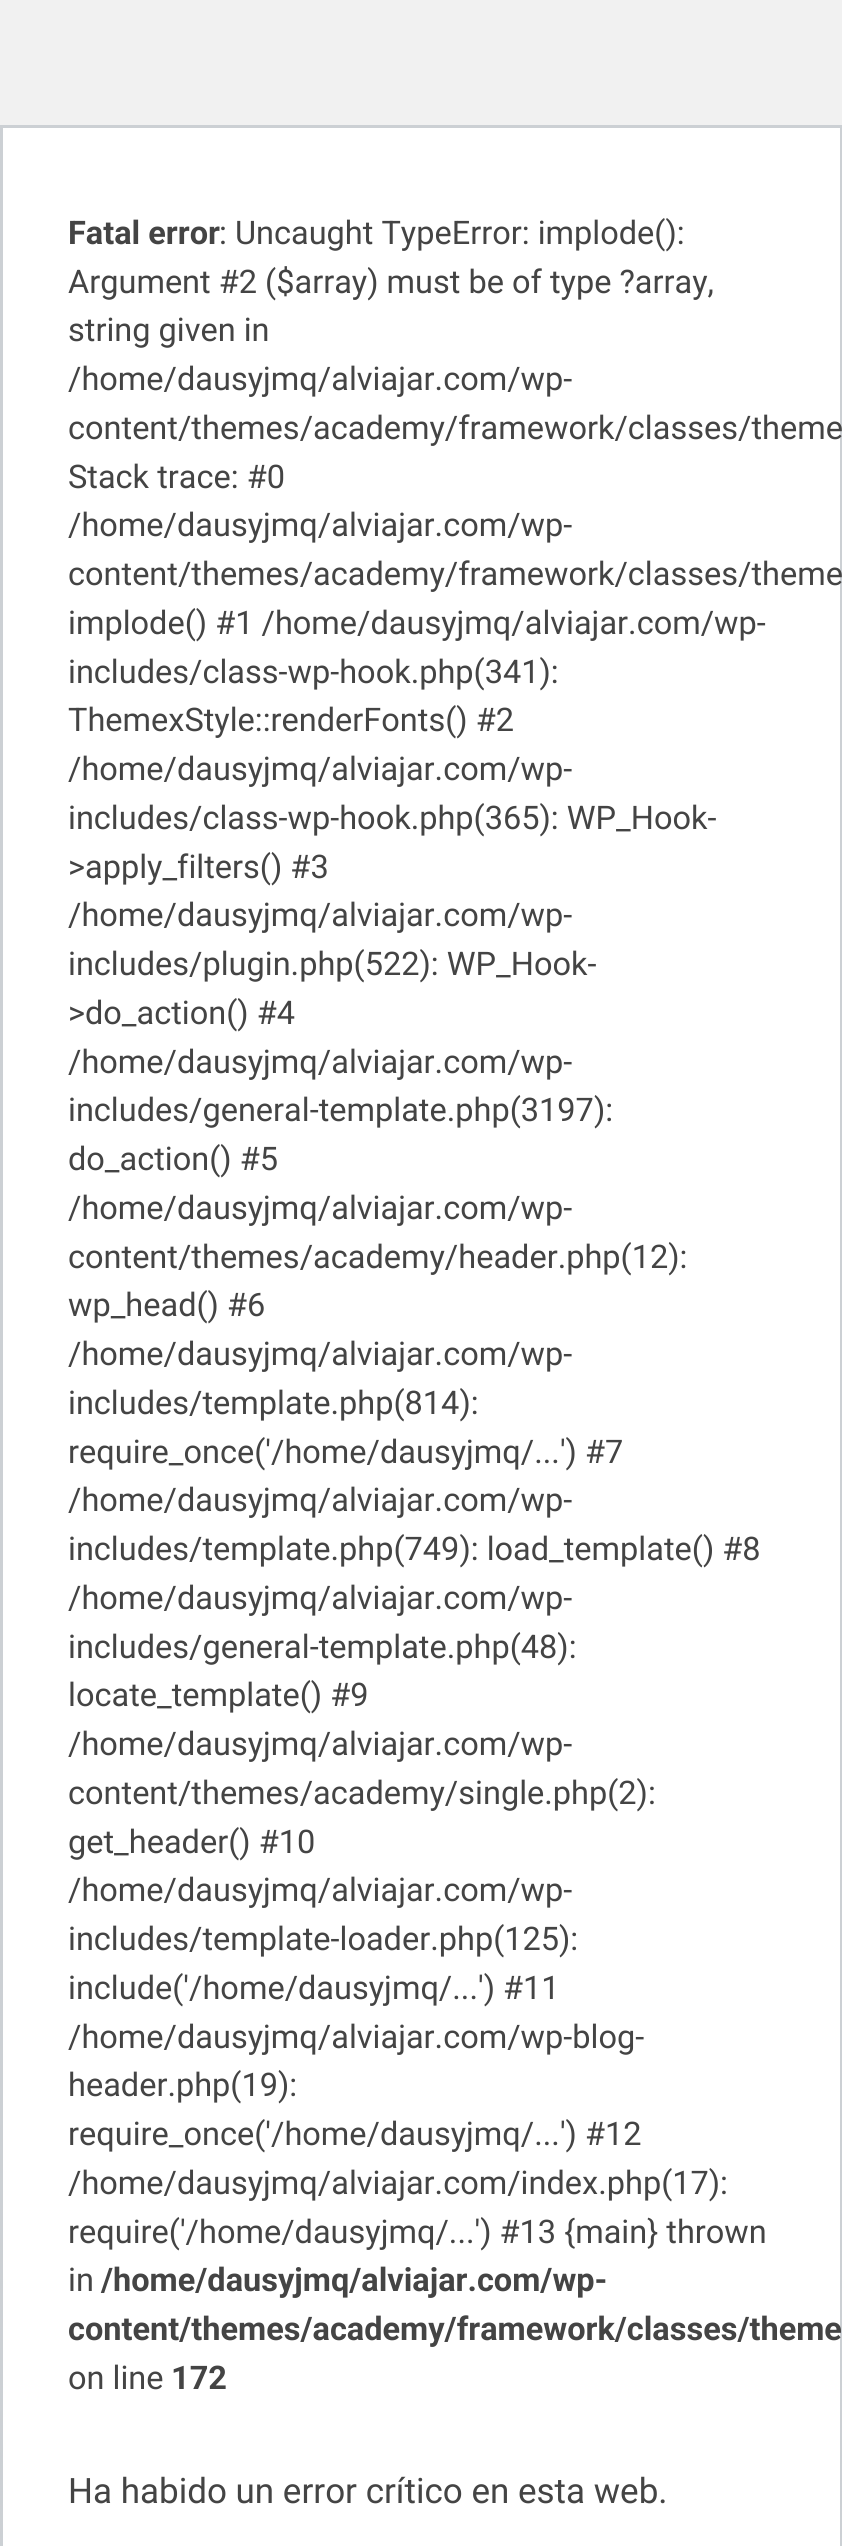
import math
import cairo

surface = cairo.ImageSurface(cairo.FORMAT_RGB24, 842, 2546)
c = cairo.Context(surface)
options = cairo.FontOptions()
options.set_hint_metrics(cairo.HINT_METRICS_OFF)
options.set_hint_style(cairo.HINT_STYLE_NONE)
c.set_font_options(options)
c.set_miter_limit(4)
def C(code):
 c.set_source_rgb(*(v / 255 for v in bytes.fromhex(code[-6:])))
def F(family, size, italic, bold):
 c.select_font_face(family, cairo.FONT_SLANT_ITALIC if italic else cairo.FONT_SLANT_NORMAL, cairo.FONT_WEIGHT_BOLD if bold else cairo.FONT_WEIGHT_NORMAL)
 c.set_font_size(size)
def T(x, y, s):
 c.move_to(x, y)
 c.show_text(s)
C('f1f1f1')
c.paint()
C('ffffff')
c.rectangle(1.5,126.5,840,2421)
c.fill_preserve()
C('ccd0d4')
c.set_line_width(3)
c.stroke()
F('Roboto',32.5,0,1)
C('444444')
T(68,244,'Fatal error')
F('Roboto',32.5,0,0)
T(219,244,': Uncaught TypeError: implode():')
T(68,293,'Argument #2 ($array) must be of type ?array,')
T(68,341,'string given in')
T(68,390,'/home/dausyjmq/alviajar.com/wp-')
T(68,439,'content/themes/academy/framework/classes/theme')
T(68,488,'Stack trace: #0')
T(68,536,'/home/dausyjmq/alviajar.com/wp-')
T(68,585,'content/themes/academy/framework/classes/theme')
T(68,634,'implode() #1 /home/dausyjmq/alviajar.com/wp-')
T(68,683,'includes/class-wp-hook.php(341):')
T(68,731,'ThemexStyle::renderFonts() #2')
T(68,780,'/home/dausyjmq/alviajar.com/wp-')
T(68,829,'includes/class-wp-hook.php(365): WP_Hook-')
T(68,878,'>apply_filters() #3')
T(68,926,'/home/dausyjmq/alviajar.com/wp-')
T(68,975,'includes/plugin.php(522): WP_Hook-')
T(68,1024,'>do_action() #4')
T(68,1073,'/home/dausyjmq/alviajar.com/wp-')
T(68,1121,'includes/general-template.php(3197):')
T(68,1170,'do_action() #5')
T(68,1219,'/home/dausyjmq/alviajar.com/wp-')
T(68,1268,'content/themes/academy/header.php(12):')
T(68,1316,'wp_head() #6')
T(68,1365,'/home/dausyjmq/alviajar.com/wp-')
T(68,1414,'includes/template.php(814):')
T(68,1463,'require_once(\'/home/dausyjmq/...\') #7')
T(68,1511,'/home/dausyjmq/alviajar.com/wp-')
T(68,1560,'includes/template.php(749): load_template() #8')
T(68,1609,'/home/dausyjmq/alviajar.com/wp-')
T(68,1658,'includes/general-template.php(48):')
T(68,1706,'locate_template() #9')
T(68,1755,'/home/dausyjmq/alviajar.com/wp-')
T(68,1804,'content/themes/academy/single.php(2):')
T(68,1853,'get_header() #10')
T(68,1901,'/home/dausyjmq/alviajar.com/wp-')
T(68,1950,'includes/template-loader.php(125):')
T(68,1999,'include(\'/home/dausyjmq/...\') #11')
T(68,2048,'/home/dausyjmq/alviajar.com/wp-blog-')
T(68,2096,'header.php(19):')
T(68,2145,'require_once(\'/home/dausyjmq/...\') #12')
T(68,2194,'/home/dausyjmq/alviajar.com/index.php(17):')
T(68,2243,'require(\'/home/dausyjmq/...\') #13 {main} thrown')
T(68,2291,'in')
F('Roboto',32.5,0,1)
T(101,2291,'/home/dausyjmq/alviajar.com/wp-')
T(68,2340,'content/themes/academy/framework/classes/theme')
F('Roboto',32.5,0,0)
T(68,2389,'on line')
F('Roboto',32.5,0,1)
T(171,2389,'172')
F('Roboto',35,0,0)
T(68,2503,'Ha habido un error crítico en esta web.')
surface.write_to_png('o.png')
